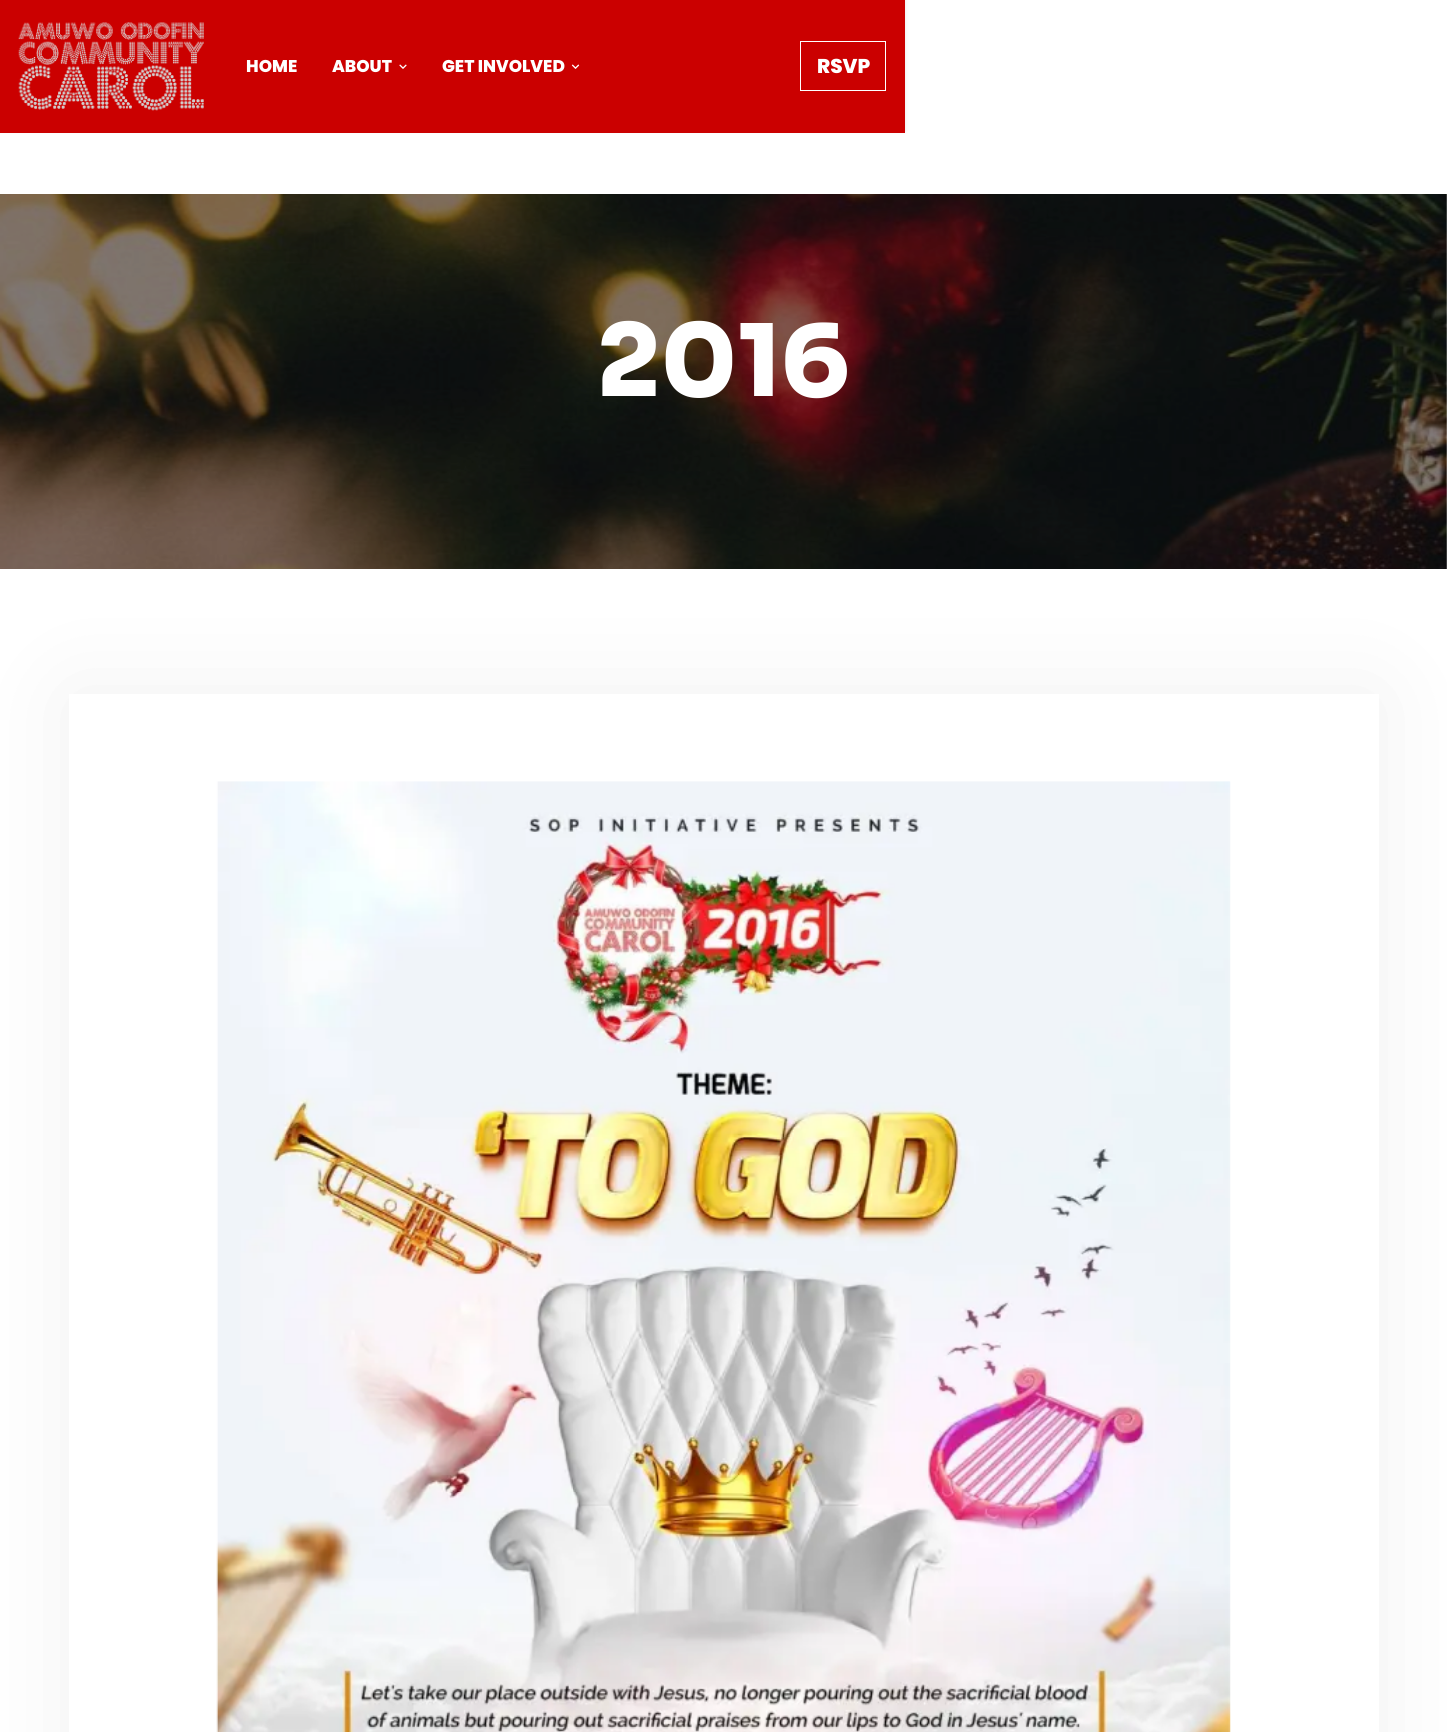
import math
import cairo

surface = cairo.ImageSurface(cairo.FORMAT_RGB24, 1447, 1732)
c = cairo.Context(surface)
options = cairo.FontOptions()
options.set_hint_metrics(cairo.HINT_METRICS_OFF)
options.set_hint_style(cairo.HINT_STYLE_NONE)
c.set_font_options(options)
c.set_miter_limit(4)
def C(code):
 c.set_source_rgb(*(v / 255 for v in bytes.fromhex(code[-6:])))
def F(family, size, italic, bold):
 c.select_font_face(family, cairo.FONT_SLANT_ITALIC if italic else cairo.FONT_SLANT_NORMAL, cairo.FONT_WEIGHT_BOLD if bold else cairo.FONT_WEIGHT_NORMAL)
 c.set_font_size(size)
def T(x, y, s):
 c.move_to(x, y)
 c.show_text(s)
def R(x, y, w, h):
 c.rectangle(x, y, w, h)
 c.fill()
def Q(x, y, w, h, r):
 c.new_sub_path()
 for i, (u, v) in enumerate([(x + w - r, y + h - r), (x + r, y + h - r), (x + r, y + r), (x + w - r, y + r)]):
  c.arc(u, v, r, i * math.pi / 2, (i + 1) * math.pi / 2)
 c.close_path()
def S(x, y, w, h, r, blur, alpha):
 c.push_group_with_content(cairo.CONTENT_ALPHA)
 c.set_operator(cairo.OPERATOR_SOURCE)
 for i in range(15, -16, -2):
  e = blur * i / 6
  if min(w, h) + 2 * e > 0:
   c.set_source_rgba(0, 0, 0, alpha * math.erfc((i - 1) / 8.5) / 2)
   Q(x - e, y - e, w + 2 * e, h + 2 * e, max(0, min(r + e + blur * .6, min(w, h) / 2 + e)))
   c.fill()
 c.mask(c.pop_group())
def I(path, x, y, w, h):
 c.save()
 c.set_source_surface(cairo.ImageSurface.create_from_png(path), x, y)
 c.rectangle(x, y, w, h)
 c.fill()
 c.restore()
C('ffffff')
c.paint()
C('000000')
S(0,-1,905,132,0,2,.1)
C('cb0000')
R(0,0,905,133)
I('1.png',18,22,186,89)
F('Poppins ExtraBold',17,0,0)
C('ffffff')
T(246,72,'HOME')
T(332,72,'ABOUT')
I('2.png',399,64,8,5)
T(442,72,'GET INVOLVED')
I('3.png',571,64,9,5)
c.rectangle(800.5,41.5,85,49)
c.set_line_width(1)
c.stroke()
F('Poppins ExtraBold',20,0,0)
T(817,73,'RSVP')
I('4.png',0,194,1447,375)
F('Sora ExtraBold',100,0,0)
T(597,396,'2016')
C('000000')
S(68,693,1312,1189,0,50,.06)
C('ffffff')
R(69,694,1310,1038)
I('5.png',216,781,1015,951)
surface.write_to_png('o.png')
